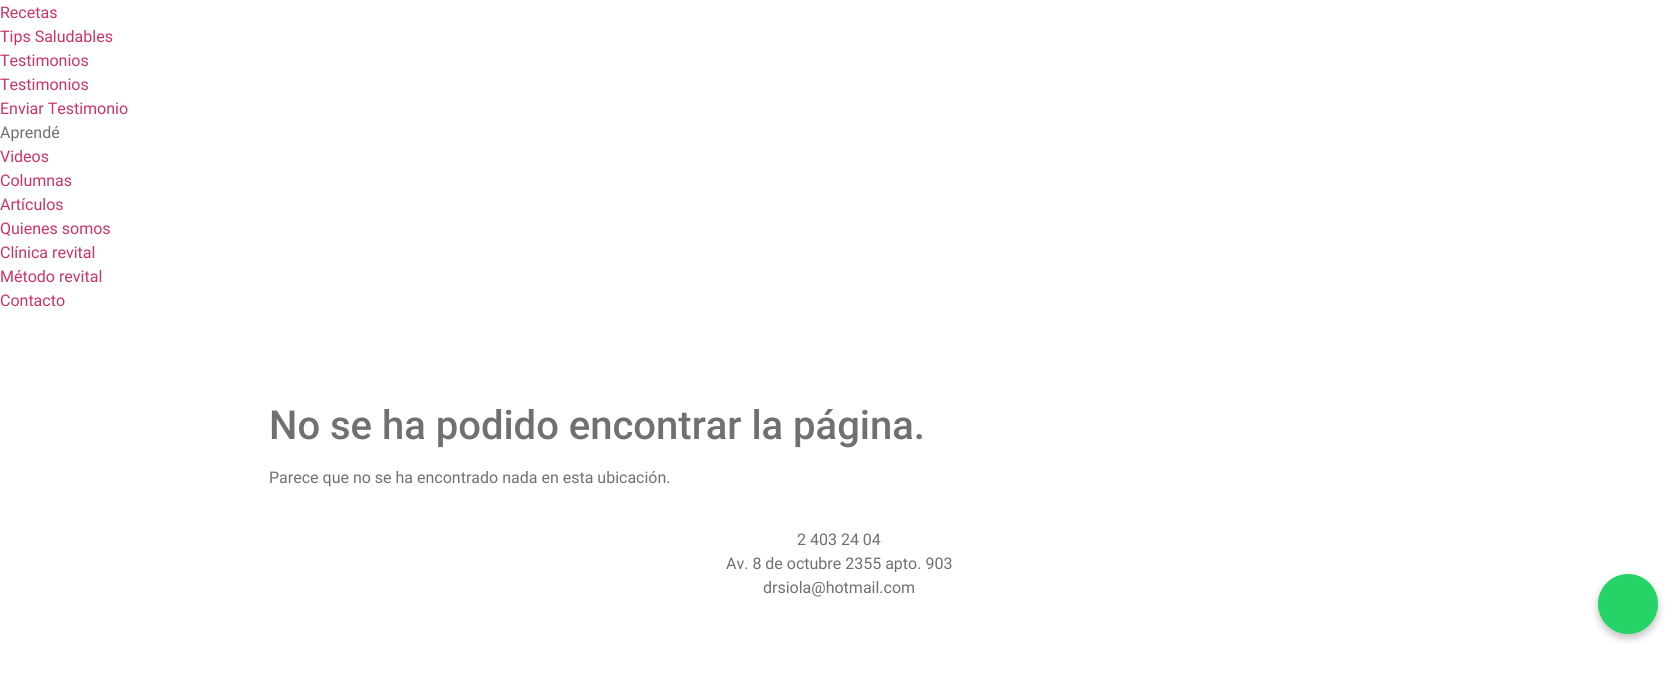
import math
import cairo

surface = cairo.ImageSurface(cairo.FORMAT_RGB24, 1678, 684)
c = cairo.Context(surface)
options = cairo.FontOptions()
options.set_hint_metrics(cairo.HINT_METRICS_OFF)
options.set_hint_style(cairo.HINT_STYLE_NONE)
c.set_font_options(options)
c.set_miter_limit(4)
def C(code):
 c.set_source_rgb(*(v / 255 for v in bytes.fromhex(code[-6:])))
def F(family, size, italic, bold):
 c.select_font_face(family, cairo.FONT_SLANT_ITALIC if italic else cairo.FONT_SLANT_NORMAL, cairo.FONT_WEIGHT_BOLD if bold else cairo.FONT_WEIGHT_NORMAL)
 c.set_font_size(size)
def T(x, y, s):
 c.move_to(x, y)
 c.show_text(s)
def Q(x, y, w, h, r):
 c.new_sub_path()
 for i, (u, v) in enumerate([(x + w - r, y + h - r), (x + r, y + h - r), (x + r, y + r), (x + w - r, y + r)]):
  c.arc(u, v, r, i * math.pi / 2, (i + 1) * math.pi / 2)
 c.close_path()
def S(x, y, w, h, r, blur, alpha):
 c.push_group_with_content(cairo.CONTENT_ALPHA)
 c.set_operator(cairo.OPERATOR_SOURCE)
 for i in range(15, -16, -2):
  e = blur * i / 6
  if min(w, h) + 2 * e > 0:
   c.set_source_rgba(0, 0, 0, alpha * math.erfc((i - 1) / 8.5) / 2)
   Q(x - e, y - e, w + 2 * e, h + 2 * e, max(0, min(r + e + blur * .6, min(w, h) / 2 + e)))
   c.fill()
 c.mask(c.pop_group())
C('ffffff')
c.paint()
F('Roboto',16,0,0)
C('cc3366')
T(0,18,'Recetas')
T(0,42,'Tips Saludables')
T(0,66,'Testimonios')
T(0,90,'Testimonios')
T(0,114,'Enviar Testimonio')
C('6f7070')
T(0,138,'Aprendé')
C('cc3366')
T(0,162,'Videos')
T(0,186,'Columnas')
T(0,210,'Artículos')
T(0,234,'Quienes somos')
T(0,258,'Clínica revital')
T(0,282,'Método revital')
T(0,306,'Contacto')
F('Roboto Medium',40,0,0)
C('6f7070')
T(269,439,'No se ha podido encontrar la página.')
F('Roboto',16,0,0)
T(269,483,'Parece que no se ha encontrado nada en esta ubicación.')
T(797,545,'2 403 24 04')
T(726,569,'Av. 8 de octubre 2355 apto. 903')
T(763,593,'drsiola@hotmail.com')
C('000000')
S(1598,578,60,60,30,4,.25)
C('25d366')
c.arc(1628,604,30,0,2 * math.pi)
c.fill()
surface.write_to_png('o.png')
